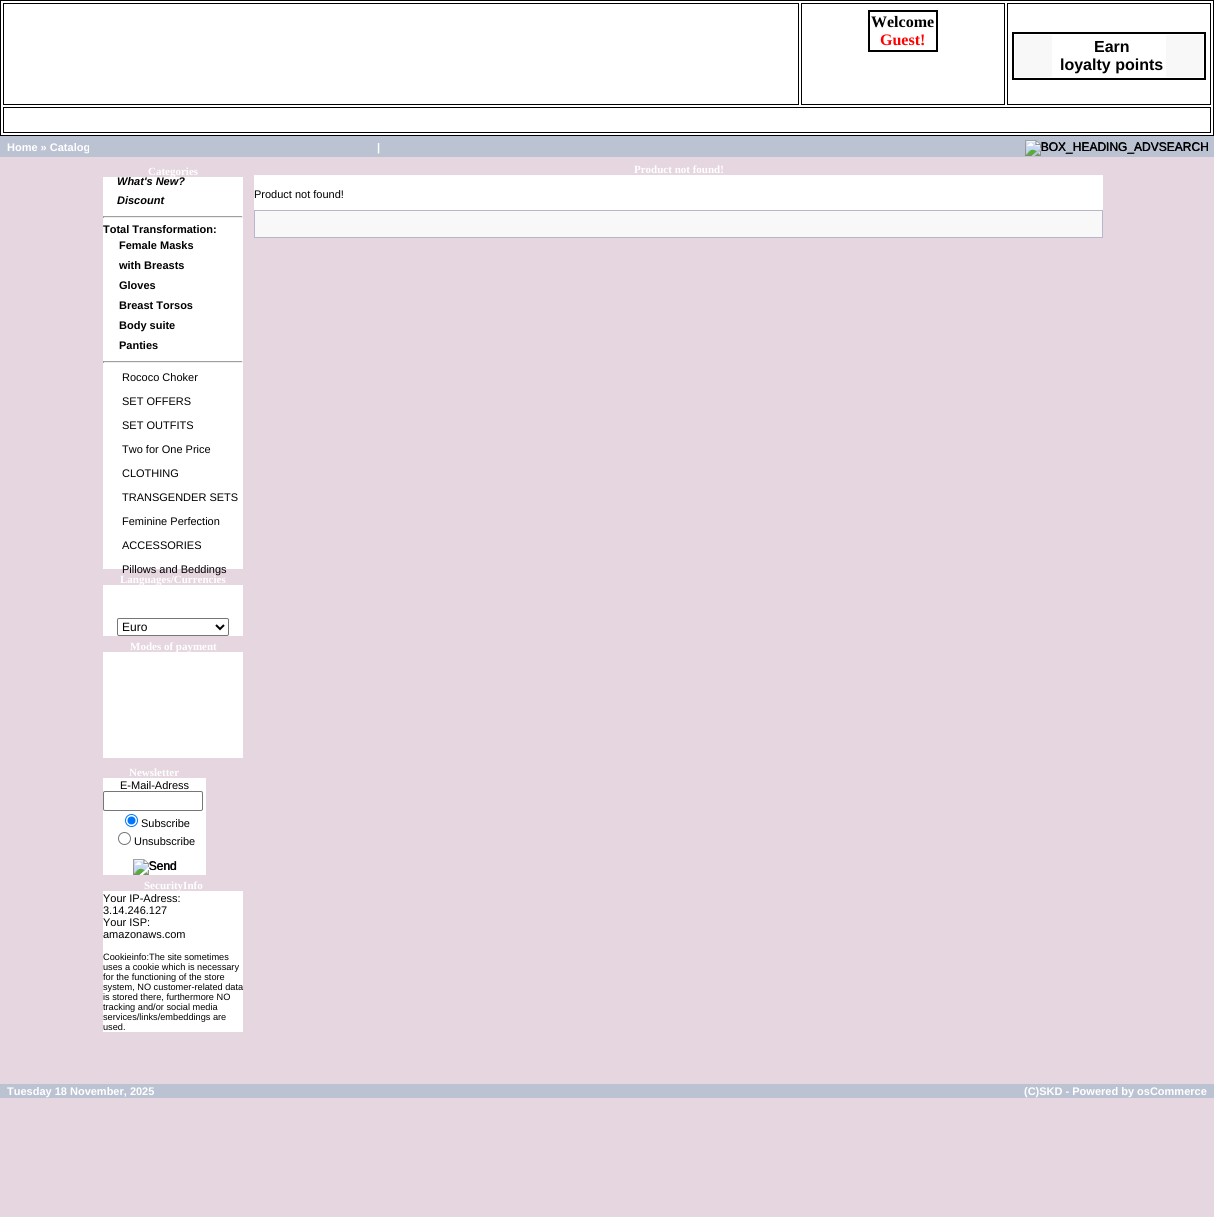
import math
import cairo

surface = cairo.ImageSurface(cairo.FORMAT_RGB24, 1214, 1217)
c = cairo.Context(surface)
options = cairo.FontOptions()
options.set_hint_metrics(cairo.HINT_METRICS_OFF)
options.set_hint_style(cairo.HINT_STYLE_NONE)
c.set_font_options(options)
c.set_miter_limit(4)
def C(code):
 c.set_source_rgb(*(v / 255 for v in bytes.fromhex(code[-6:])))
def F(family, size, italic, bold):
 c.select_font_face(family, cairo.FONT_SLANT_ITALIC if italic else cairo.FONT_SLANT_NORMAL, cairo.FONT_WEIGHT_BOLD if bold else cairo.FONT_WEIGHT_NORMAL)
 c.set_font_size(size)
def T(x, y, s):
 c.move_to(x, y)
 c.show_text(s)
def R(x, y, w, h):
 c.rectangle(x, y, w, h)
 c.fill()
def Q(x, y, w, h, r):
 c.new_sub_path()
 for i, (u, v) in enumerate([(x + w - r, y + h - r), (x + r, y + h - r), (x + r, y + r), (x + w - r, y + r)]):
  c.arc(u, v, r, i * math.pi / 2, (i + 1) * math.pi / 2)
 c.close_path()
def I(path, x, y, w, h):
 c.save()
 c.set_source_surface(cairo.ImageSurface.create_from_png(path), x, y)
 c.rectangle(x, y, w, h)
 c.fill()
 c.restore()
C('e5d6df')
c.paint()
C('ffffff')
c.rectangle(.5,.5,1213,135)
c.fill_preserve()
C('000000')
c.set_line_width(1)
c.stroke()
c.rectangle(3.5,3.5,795,101)
c.stroke()
c.rectangle(801.5,3.5,203,101)
c.stroke()
c.rectangle(868.5,10.5,69,41)
c.stroke()
c.rectangle(869.5,11.5,67,39)
c.stroke()
F('Liberation Serif',16,0,1)
T(871,27,'Welcome')
C('ff0000')
T(880,45,'Guest!')
c.rectangle(1007.5,3.5,203,101)
C('000000')
c.stroke()
c.rectangle(1012.5,32.5,193,47)
c.stroke()
c.rectangle(1013.5,33.5,191,45)
c.stroke()
C('f8f8f9')
R(1015,35,188,42)
C('ffffff')
R(1052,35,114,42)
F('Liberation Sans',16,0,1)
C('000000')
T(1094,52,'Earn')
T(1060,70,'loyalty points')
c.rectangle(3.5,107.5,1207,25)
c.stroke()
C('bbc3d3')
R(0,136,1214,21)
F('Liberation Sans',11,0,1)
C('ffffff')
T(7,151,'Home » Catalog')
T(377,151,'|')
I('1.png',1025,140,183,16)
F('Liberation Sans',12,0,0)
C('000000')
T(1041,151,'BOX_HEADING_ADVSEARCH')
C('ffffff')
R(103,177,140,392)
F('Liberation Serif',11,0,1)
T(148,175,'Categories')
F('Liberation Sans',11,1,1)
C('000000')
T(117,185,'What\'s New?')
T(117,204,'Discount')
C('9f9f9f')
R(103,216,140,1)
C('eeeeee')
R(242,216,1,2)
R(103,217,140,1)
C('9f9f9f')
R(103,216,1,2)
F('Liberation Sans',11,0,1)
C('000000')
T(103,233,'Total Transformation:')
T(119,249,'Female Masks')
T(119,269,'with Breasts')
T(119,289,'Gloves')
T(119,309,'Breast Torsos')
T(119,329,'Body suite')
T(119,349,'Panties')
C('9f9f9f')
R(103,361,140,1)
C('eeeeee')
R(242,361,1,2)
R(103,362,140,1)
C('9f9f9f')
R(103,361,1,2)
F('Liberation Sans',11,0,0)
C('000000')
T(122,381,'Rococo Choker')
T(122,405,'SET OFFERS')
T(122,429,'SET OUTFITS')
T(122,453,'Two for One Price')
T(122,477,'CLOTHING')
T(122,501,'TRANSGENDER SETS')
T(122,525,'Feminine Perfection')
T(122,549,'ACCESSORIES')
T(122,573,'Pillows and Beddings')
C('ffffff')
R(103,585,140,51)
F('Liberation Serif',11,0,1)
T(120,583,'Languages/Currencies')
Q(117.5,618.5,111,17,1.5)
C('767676')
c.stroke()
c.new_path()
c.move_to(216,625)
c.line_to(220,629)
c.line_to(224,625)
C('000000')
c.set_line_width(2)
c.stroke()
F('Liberation Sans',12,0,0)
T(122,631,'Euro')
C('ffffff')
R(103,652,140,106)
F('Liberation Serif',11,0,1)
T(130,650,'Modes of payment')
T(129,776,'Newsletter')
R(103,778,103,97)
F('Liberation Sans',11,0,0)
C('000000')
T(120,789,'E-Mail-Adress')
Q(103.5,791.5,99,19,1.5)
C('767676')
c.set_line_width(1)
c.stroke()
c.arc(131.5,820.5,6,0,2 * math.pi)
C('0075ff')
c.stroke()
c.arc(131.5,820.5,4,0,2 * math.pi)
c.fill()
C('000000')
T(141,827,'Subscribe')
c.new_path()
c.arc(124.5,838.5,6,0,2 * math.pi)
C('767676')
c.stroke()
C('000000')
T(134,845,'Unsubscribe')
I('2.png',133,859,43,16)
F('Liberation Sans',12,0,0)
T(149,870,'Send')
C('ffffff')
R(103,891,140,141)
F('Liberation Serif',11,0,1)
T(144,889,'SecurityInfo')
F('Liberation Sans',11,0,0)
C('000000')
T(103,902,'Your IP-Adress:')
T(103,914,'3.14.246.127')
T(103,926,'Your ISP:')
T(103,938,'amazonaws.com')
F('Liberation Sans',9.2,0,0)
T(103,960,'Cookieinfo:The site sometimes')
T(103,970,'uses a cookie which is necessary')
T(103,980,'for the functioning of the store')
T(103,990,'system, NO customer-related data')
T(103,1000,'is stored there, furthermore NO')
T(103,1010,'tracking and/or social media')
T(103,1020,'services/links/embeddings are')
T(103,1030,'used.')
F('Liberation Serif',11,0,1)
C('ffffff')
T(634,173,'Product not found!')
R(254,175,849,35)
F('Liberation Sans',11,0,0)
C('000000')
T(254,198,'Product not found!')
C('b6b7cb')
R(254,210,849,28)
C('f8f8f9')
R(255,211,847,26)
C('bbc3d3')
R(0,1084,1214,14)
F('Liberation Sans',11,0,1)
C('ffffff')
T(7,1095,'Tuesday 18 November, 2025')
T(1024,1095,'(C)SKD - Powered by osCommerce')
surface.write_to_png('o.png')
